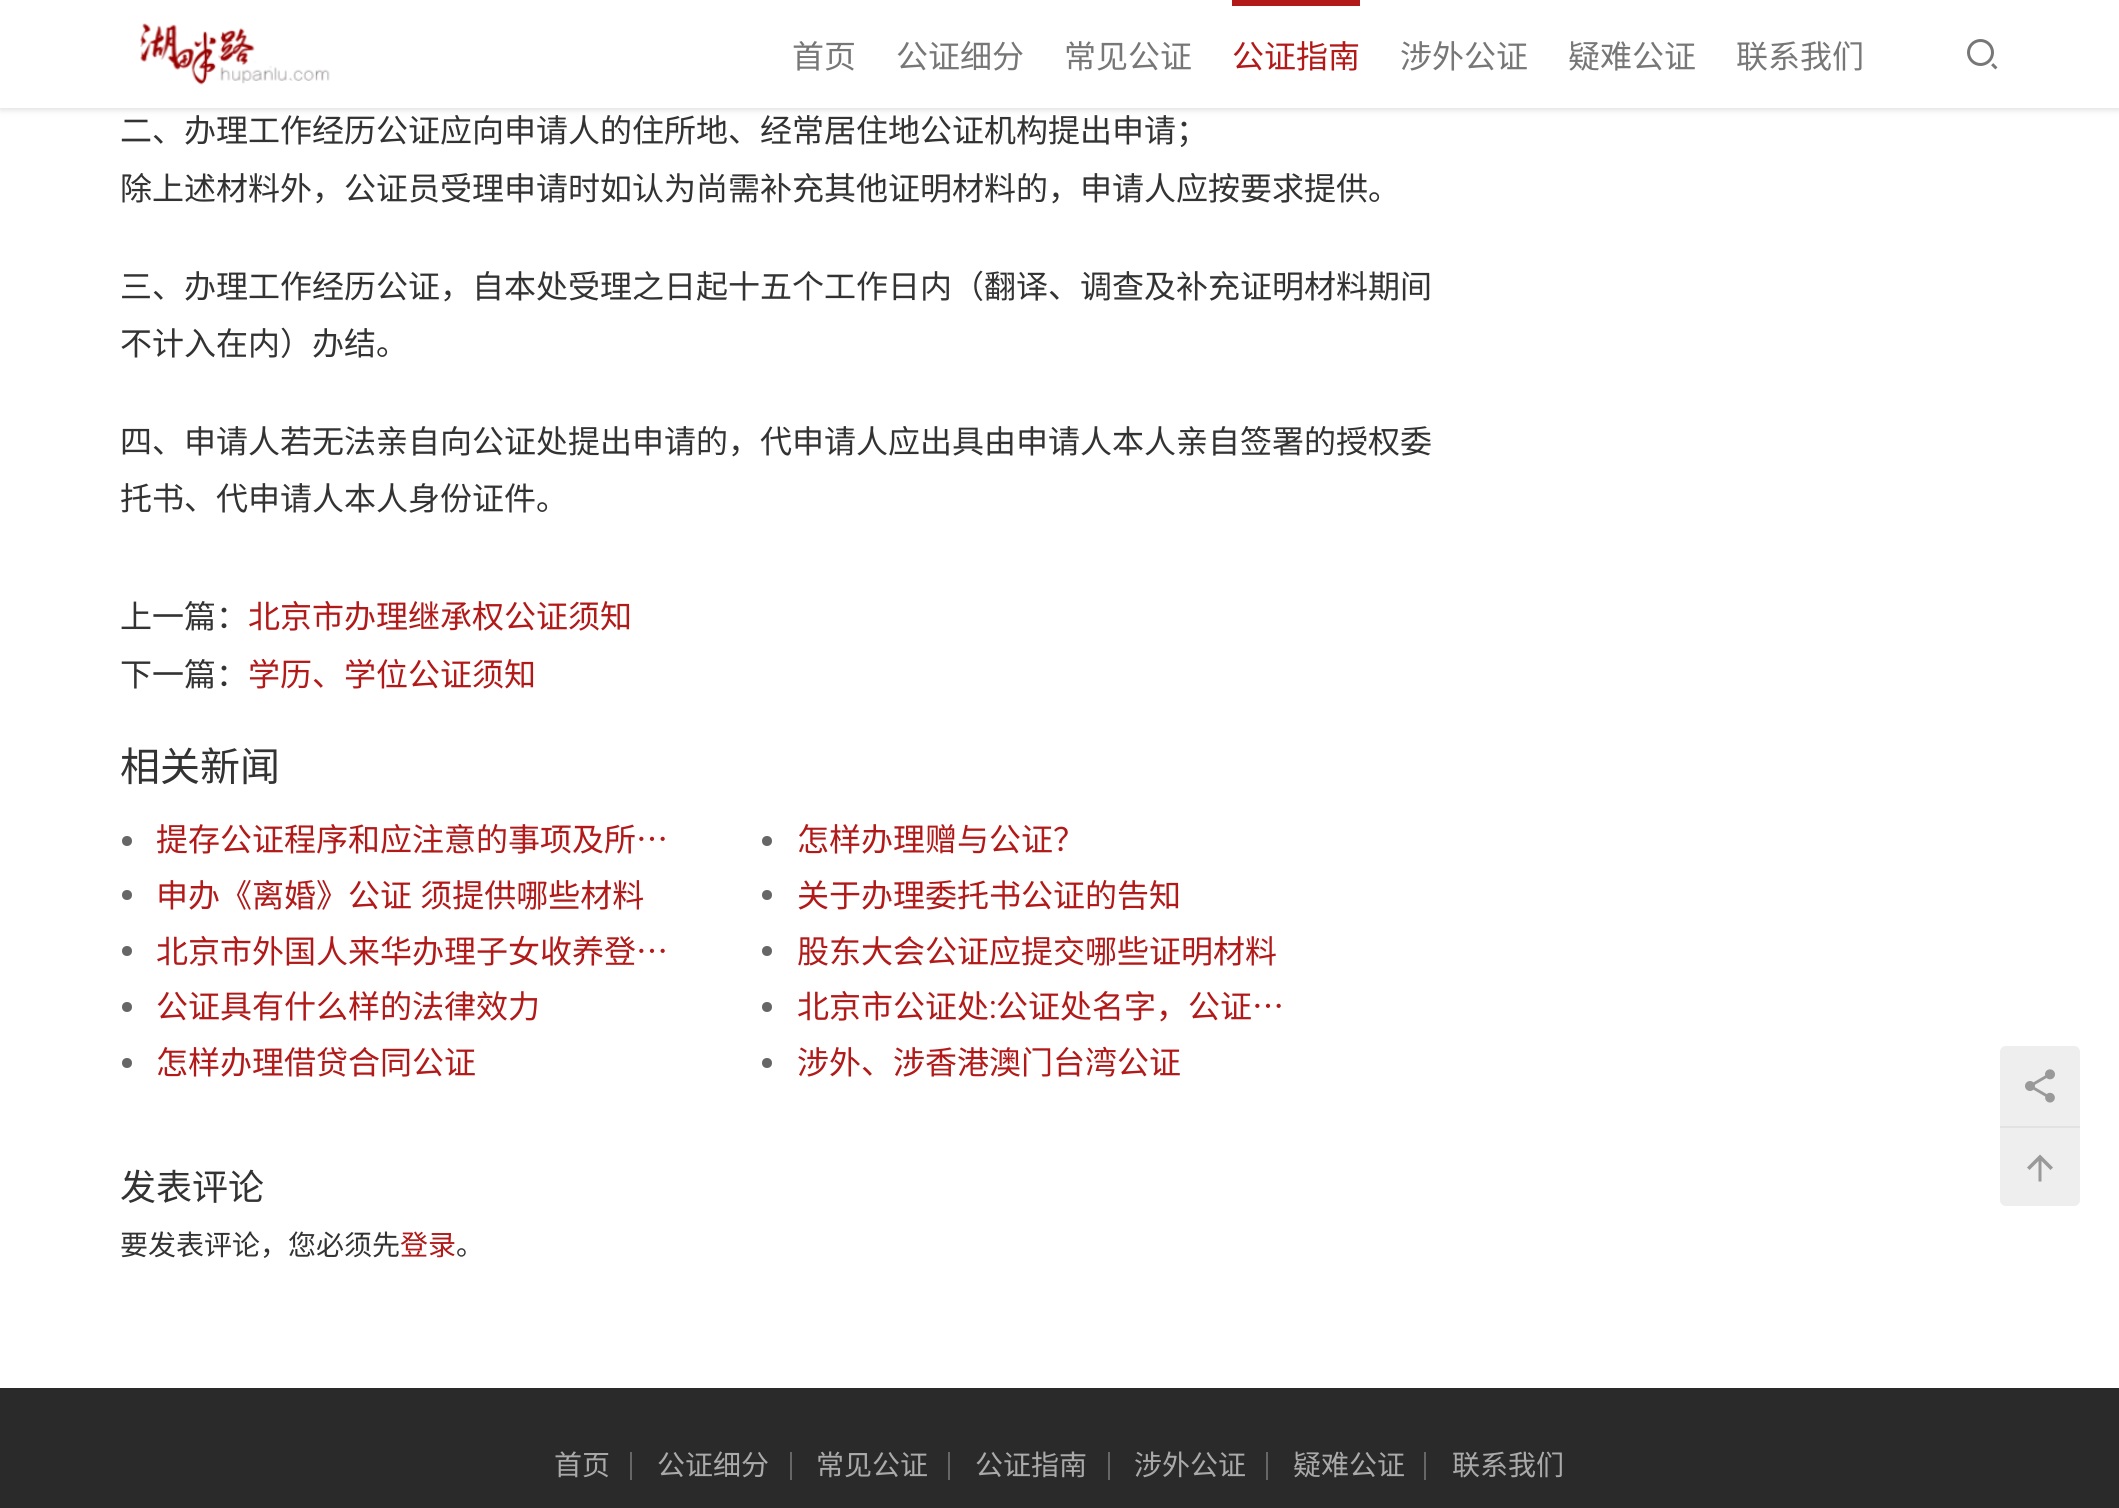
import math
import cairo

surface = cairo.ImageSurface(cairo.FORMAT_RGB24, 2119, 1508)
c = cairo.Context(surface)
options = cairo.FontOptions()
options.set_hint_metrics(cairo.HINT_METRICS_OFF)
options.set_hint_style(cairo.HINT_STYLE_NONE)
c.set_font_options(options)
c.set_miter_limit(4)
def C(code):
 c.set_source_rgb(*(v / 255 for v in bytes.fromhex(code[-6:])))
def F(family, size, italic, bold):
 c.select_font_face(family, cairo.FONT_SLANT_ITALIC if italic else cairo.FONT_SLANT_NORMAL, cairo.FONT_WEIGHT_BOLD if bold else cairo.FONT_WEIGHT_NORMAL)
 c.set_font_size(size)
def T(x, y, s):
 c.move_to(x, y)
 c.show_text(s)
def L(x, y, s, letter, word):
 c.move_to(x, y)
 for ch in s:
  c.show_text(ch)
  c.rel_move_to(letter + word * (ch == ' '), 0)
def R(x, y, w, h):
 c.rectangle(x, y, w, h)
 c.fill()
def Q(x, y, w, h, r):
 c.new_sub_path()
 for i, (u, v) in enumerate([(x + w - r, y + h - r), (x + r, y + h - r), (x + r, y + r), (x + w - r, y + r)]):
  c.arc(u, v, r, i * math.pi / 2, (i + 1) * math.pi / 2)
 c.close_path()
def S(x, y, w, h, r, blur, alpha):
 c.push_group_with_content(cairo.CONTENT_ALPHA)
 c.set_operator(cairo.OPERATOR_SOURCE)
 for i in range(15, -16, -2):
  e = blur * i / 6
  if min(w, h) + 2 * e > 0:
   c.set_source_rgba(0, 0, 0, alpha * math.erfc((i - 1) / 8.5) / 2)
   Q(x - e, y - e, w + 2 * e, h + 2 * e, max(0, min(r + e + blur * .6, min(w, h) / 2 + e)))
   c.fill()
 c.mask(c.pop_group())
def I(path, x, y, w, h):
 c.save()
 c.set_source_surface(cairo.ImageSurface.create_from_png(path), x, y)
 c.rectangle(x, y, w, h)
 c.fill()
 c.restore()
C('ffffff')
c.paint()
C('646464')
S(0,2,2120,108,0,3,.2)
C('ffffff')
R(0,0,2119,108)
I('1.png',140,23,190,62)
F('Noto Sans CJK SC',32,0,0)
C('777777')
T(792,68,'首页')
T(896,68,'公证细分')
T(1064,68,'常见公证')
C('b21a1a')
R(1232,0,128,6)
T(1232,68,'公证指南')
C('777777')
T(1400,68,'涉外公证')
T(1568,68,'疑难公证')
T(1736,68,'联系我们')
I('2.png',1967,39,31,31)
C('333333')
T(120,142,'二、办理工作经历公证应向申请人的住所地、经常居住地公证机构提出申请；')
T(120,200,'除上述材料外，公证员受理申请时如认为尚需补充其他证明材料的，申请人应按要求提供。')
T(120,298,'三、办理工作经历公证，自本处受理之日起十五个工作日内（翻译、调查及补充证明材料期间')
T(120,355,'不计入在内）办结。')
T(120,453,'四、申请人若无法亲自向公证处提出申请的，代申请人应出具由申请人本人亲自签署的授权委')
T(120,510,'托书、代申请人本人身份证件。')
T(120,628,'上一篇：')
C('b21a1a')
T(248,628,'北京市办理继承权公证须知')
C('333333')
T(120,686,'下一篇：')
C('b21a1a')
T(248,686,'学历、学位公证须知')
F('Noto Sans CJK SC',40,0,0)
C('333333')
T(120,781,'相关新闻')
C('666666')
c.new_path()
c.arc(127,841,5,0,2 * math.pi)
c.fill()
F('Noto Sans CJK SC',32,0,0)
C('b21a1a')
T(156,851,'提存公证程序和应注意的事项及所…')
C('666666')
c.new_path()
c.arc(767,841,5,0,2 * math.pi)
c.fill()
C('b21a1a')
T(797,851,'怎样办理赠与公证？')
C('666666')
c.new_path()
c.arc(127,895,5,0,2 * math.pi)
c.fill()
C('b21a1a')
L(156,907,'申办《离婚》公证 须提供哪些材料',0,1)
C('666666')
c.new_path()
c.arc(767,895,5,0,2 * math.pi)
c.fill()
C('b21a1a')
T(797,907,'关于办理委托书公证的告知')
C('666666')
c.new_path()
c.arc(127,951,5,0,2 * math.pi)
c.fill()
C('b21a1a')
T(156,963,'北京市外国人来华办理子女收养登…')
C('666666')
c.new_path()
c.arc(767,951,5,0,2 * math.pi)
c.fill()
C('b21a1a')
T(797,963,'股东大会公证应提交哪些证明材料')
C('666666')
c.new_path()
c.arc(127,1007,5,0,2 * math.pi)
c.fill()
C('b21a1a')
T(156,1018,'公证具有什么样的法律效力')
C('666666')
c.new_path()
c.arc(767,1007,5,0,2 * math.pi)
c.fill()
C('b21a1a')
T(797,1018,'北京市公证处')
F('Roboto',32,0,0)
T(989,1018,':')
F('Noto Sans CJK SC',32,0,0)
L(996,1018,'公证处名字，公证…',0,1)
C('666666')
c.new_path()
c.arc(127,1063,5,0,2 * math.pi)
c.fill()
C('b21a1a')
T(156,1074,'怎样办理借贷合同公证')
C('666666')
c.new_path()
c.arc(767,1063,5,0,2 * math.pi)
c.fill()
C('b21a1a')
T(797,1074,'涉外、涉香港澳门台湾公证')
F('Noto Sans CJK SC',36,0,0)
C('333333')
T(120,1200,'发表评论')
F('Noto Sans CJK SC',28,0,0)
T(120,1255,'要发表评论，您必须先')
C('b21a1a')
T(400,1255,'登录')
C('333333')
T(456,1255,'。')
C('eeeeee')
c.new_path()
c.move_to(2006,1046)
c.line_to(2074,1046)
c.curve_to(2077.5,1046,2080,1048.5,2080,1052)
c.line_to(2080,1126)
c.line_to(2000,1126)
c.line_to(2000,1052)
c.curve_to(2000,1048.5,2002.5,1046,2006,1046)
c.close_path()
c.fill()
I('3.png',2025,1069,30,34)
c.new_path()
c.move_to(2000,1126)
c.line_to(2080,1126)
c.line_to(2080,1200)
c.curve_to(2080,1203.5,2077.5,1206,2074,1206)
c.line_to(2006,1206)
c.curve_to(2002.5,1206,2000,1203.5,2000,1200)
c.close_path()
c.fill()
C('e2e2e2')
R(2000,1126,80,2)
C('999999')
c.new_path()
c.move_to(2041.5,1161)
c.line_to(2041.5,1181.5)
c.line_to(2038.5,1181.5)
c.line_to(2038.5,1161)
c.line_to(2029.5,1170)
c.line_to(2027,1167.5)
c.line_to(2040,1154.5)
c.line_to(2053,1167.5)
c.line_to(2050.5,1170)
c.close_path()
c.fill()
C('2a2a2a')
R(0,1388,2119,120)
C('666666')
R(630,1452,2,28)
C('aaaaaa')
T(554,1475,'首页')
C('666666')
R(790,1452,2,28)
C('aaaaaa')
T(657,1475,'公证细分')
C('666666')
R(948,1452,2,28)
C('aaaaaa')
T(816,1475,'常见公证')
C('666666')
R(1108,1452,2,28)
C('aaaaaa')
T(975,1475,'公证指南')
C('666666')
R(1266,1452,2,28)
C('aaaaaa')
T(1134,1475,'涉外公证')
C('666666')
R(1424,1452,2,28)
C('aaaaaa')
T(1293,1475,'疑难公证')
T(1452,1475,'联系我们')
surface.write_to_png('o.png')
